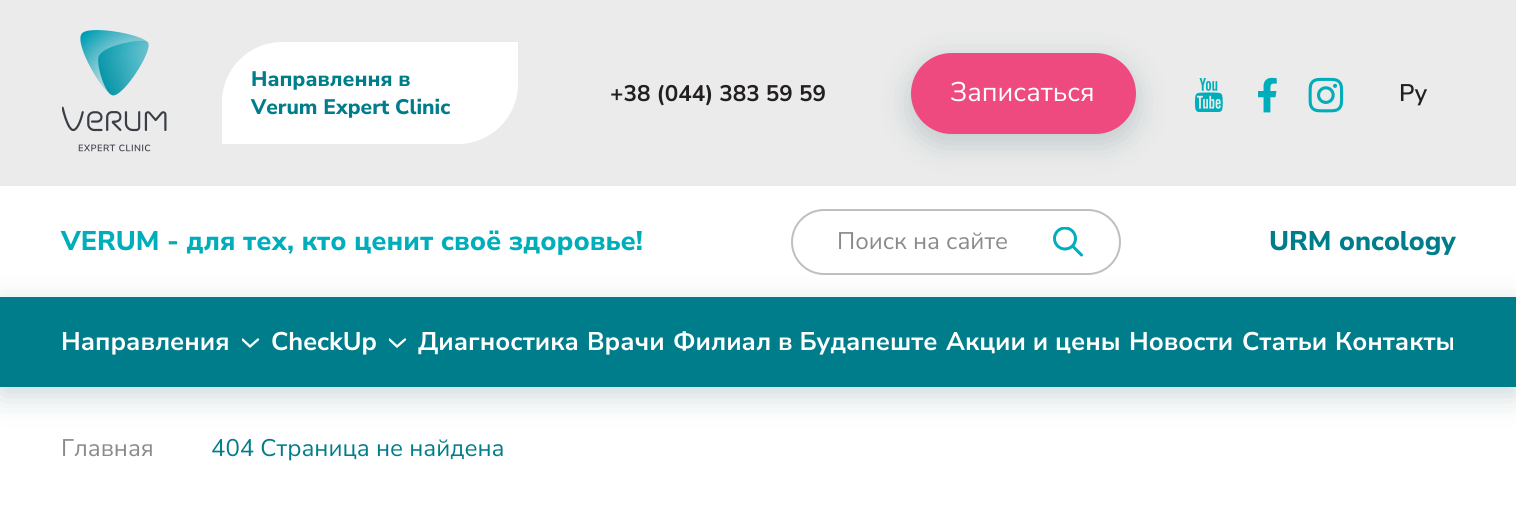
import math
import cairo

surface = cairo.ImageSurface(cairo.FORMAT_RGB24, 1516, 506)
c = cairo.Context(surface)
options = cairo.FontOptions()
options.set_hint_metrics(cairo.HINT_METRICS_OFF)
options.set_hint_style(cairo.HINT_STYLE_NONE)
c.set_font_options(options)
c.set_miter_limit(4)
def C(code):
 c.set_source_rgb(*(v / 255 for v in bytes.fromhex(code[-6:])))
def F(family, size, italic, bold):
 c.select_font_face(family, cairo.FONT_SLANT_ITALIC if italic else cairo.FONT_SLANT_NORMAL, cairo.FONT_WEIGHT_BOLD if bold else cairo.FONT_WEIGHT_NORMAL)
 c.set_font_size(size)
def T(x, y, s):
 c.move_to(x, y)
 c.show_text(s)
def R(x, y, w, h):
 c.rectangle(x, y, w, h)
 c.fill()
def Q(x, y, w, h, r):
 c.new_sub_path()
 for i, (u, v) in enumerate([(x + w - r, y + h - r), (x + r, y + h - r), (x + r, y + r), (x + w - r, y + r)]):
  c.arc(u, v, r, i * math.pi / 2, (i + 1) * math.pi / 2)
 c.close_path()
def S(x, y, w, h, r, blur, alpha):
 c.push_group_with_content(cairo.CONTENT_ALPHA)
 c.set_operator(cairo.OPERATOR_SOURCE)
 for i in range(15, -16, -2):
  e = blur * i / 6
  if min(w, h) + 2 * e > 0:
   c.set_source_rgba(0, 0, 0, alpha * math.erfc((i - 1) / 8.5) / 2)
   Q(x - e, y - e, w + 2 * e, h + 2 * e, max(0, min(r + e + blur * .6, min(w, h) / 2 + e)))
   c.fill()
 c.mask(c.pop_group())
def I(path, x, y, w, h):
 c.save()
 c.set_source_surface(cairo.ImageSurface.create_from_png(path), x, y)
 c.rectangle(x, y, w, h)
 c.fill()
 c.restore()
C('ffffff')
c.paint()
C('ebebeb')
R(0,0,1516,186)
I('1.png',62,30,105,122)
C('ffffff')
c.new_path()
c.move_to(282,42)
c.line_to(518,42)
c.line_to(518,84)
c.curve_to(518,117,491,144,458,144)
c.line_to(222,144)
c.line_to(222,102)
c.curve_to(222,69,249,42,282,42)
c.close_path()
c.fill()
F('Nunito Sans ExtraBold',21,0,0)
C('007d8a')
T(251,86,'Направлення в')
T(251,114,'Verum Expert Clinic')
F('Nunito Sans',22.5,0,1)
C('231f20')
T(610,101,'+38 (044) 383 59 59')
C('053f45')
S(911,62,225,81,40.5,15,.2)
C('ee4a80')
Q(912,54,223,79,39.5)
c.fill_preserve()
c.stroke()
F('Nunito Sans',27,0,0)
C('ffffff')
T(950,101,'Записаться')
I('2.png',1194,78,29,34)
I('3.png',1258,77,19,36)
I('4.png',1308,77,36,36)
F('Nunito Sans SemiBold',24,0,0)
C('231f20')
T(1399,101,'Ру')
F('Nunito Sans ExtraBold',27,0,0)
C('00adbb')
T(61,250,'VERUM - для тех, кто ценит своё здоровье!')
C('053f45')
S(0,306,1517,90,0,15,.2)
Q(792,210,328,64,32)
C('bfbfbf')
c.stroke()
F('Nunito Sans',24,0,0)
C('8b8b8b')
T(837,249,'Поиск на сайте')
I('5.png',1053,227,30,30)
F('Nunito Sans ExtraBold',27,0,0)
C('007d8a')
T(1269,250,'URM oncology')
R(0,297,1516,90)
F('Nunito Sans',25.5,0,1)
C('ffffff')
T(61,350,'Направления')
c.save()
c.rectangle(242,338,18,10)
c.clip()
c.new_path()
c.move_to(242.5,339.5)
c.line_to(250,346.5)
c.line_to(258,339.5)
c.set_line_width(2.3)
c.set_line_cap(cairo.LINE_CAP_ROUND)
c.stroke()
c.restore()
T(271,350,'CheckUp')
c.save()
c.rectangle(389,338,18,10)
c.clip()
c.new_path()
c.move_to(389.5,339.5)
c.line_to(397,346.5)
c.line_to(405,339.5)
c.set_line_width(2.3)
c.set_line_cap(cairo.LINE_CAP_ROUND)
c.stroke()
c.restore()
T(418,350,'Диагностика')
T(587,350,'Врачи')
T(673,350,'Филиал в Будапеште')
T(946,350,'Акции и цены')
T(1129,350,'Новости')
T(1242,350,'Статьи')
T(1335,350,'Контакты')
F('Nunito Sans',24,0,0)
C('8b8b8b')
T(61,456,'Главная')
C('007d8a')
T(211,456,'404 Страница не найдена')
surface.write_to_png('o.png')
